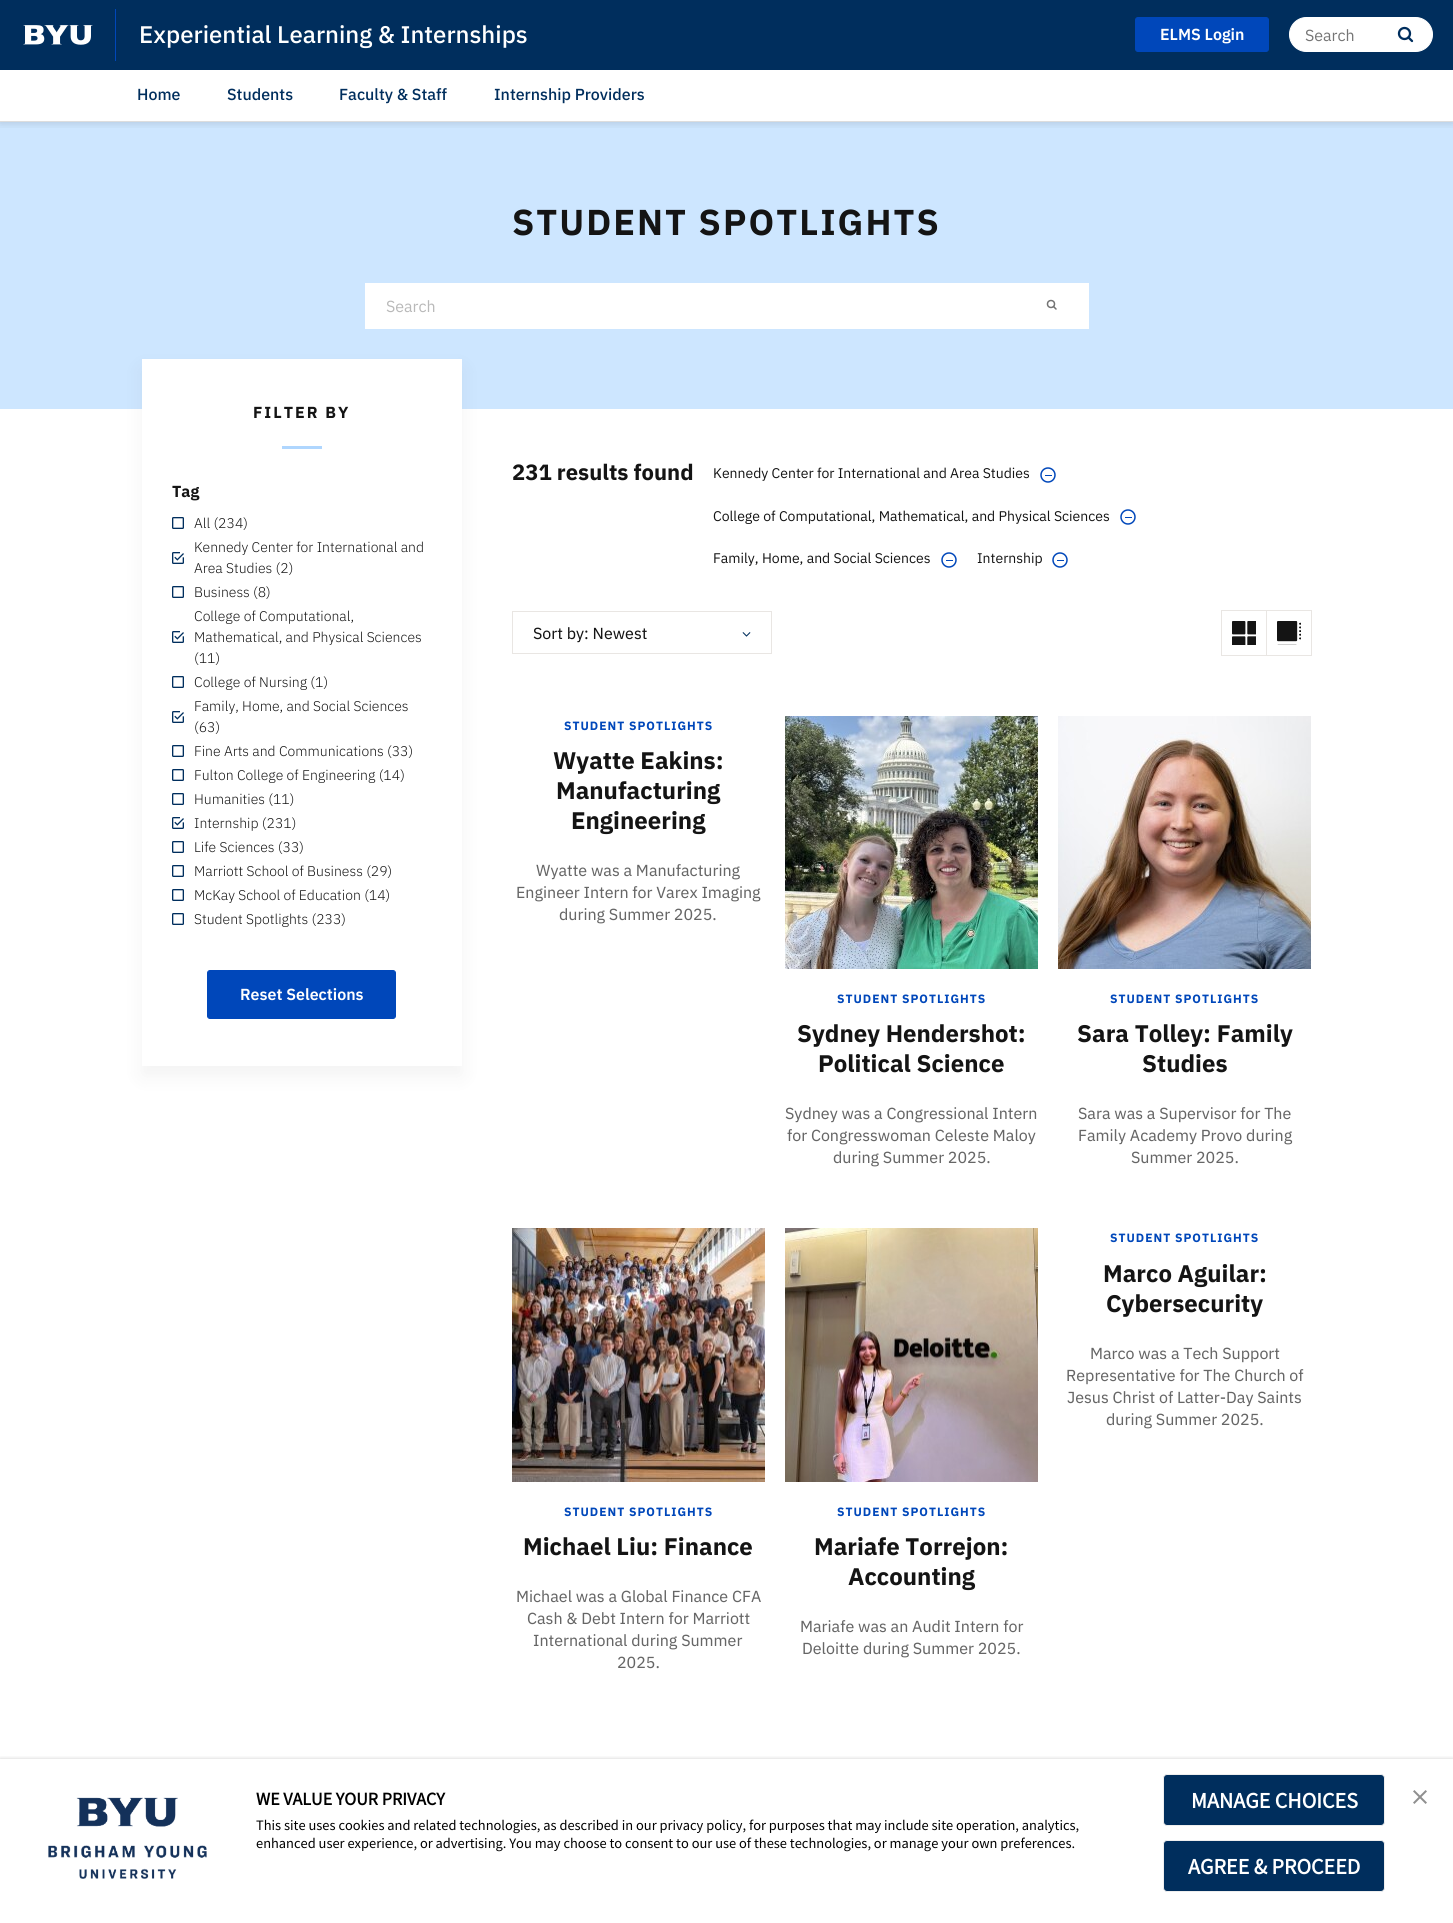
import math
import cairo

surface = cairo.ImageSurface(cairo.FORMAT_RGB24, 1453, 1923)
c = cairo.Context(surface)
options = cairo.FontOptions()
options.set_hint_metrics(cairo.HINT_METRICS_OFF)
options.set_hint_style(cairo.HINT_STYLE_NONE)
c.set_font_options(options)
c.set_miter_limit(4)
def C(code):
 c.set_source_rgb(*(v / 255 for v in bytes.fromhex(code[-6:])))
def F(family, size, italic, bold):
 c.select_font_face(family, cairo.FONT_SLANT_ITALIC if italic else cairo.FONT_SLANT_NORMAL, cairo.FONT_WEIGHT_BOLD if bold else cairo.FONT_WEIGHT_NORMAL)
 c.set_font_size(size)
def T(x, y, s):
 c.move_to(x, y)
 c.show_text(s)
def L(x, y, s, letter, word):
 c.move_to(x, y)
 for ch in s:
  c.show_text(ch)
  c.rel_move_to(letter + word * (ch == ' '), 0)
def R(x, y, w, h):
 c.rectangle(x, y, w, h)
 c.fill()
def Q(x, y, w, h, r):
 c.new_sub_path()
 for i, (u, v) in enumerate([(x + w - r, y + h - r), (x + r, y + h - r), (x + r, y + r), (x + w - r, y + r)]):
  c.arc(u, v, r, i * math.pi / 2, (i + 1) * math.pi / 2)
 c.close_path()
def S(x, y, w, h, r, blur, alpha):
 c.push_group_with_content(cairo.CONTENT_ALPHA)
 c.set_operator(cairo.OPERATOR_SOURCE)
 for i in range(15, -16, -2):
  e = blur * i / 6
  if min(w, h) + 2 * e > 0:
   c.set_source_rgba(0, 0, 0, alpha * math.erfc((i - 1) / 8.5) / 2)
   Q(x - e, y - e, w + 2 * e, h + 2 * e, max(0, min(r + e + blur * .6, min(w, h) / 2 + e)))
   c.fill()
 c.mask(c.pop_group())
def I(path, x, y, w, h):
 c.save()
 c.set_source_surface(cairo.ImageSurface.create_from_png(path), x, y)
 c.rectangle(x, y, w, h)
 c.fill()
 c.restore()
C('ffffff')
c.paint()
C('cde6ff')
R(0,122,1453,287)
c.save()
c.rectangle(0,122,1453,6)
c.clip()
C('000000')
S(0,0,1453,122,0,5,.16)
c.restore()
C('dddddd')
R(0,121,1453,1)
C('002e5d')
R(0,0,1453,70)
I('1.png',23,25,70,20)
C('0047ba')
R(115,9,1,52)
F('IBM Plex Sans Medium',24,0,0)
C('ffffff')
T(139,43,'Experiential Learning & Internships')
C('0047ba')
Q(1135.5,17.5,133,34,2.5)
c.fill_preserve()
c.set_line_width(1)
c.stroke()
F('IBM Plex Sans SemiBold',16,0,0)
C('ffffff')
T(1160,40,'ELMS Login')
Q(1289.5,17.5,143,34,17)
c.fill_preserve()
c.stroke()
F('IBM Plex Sans',16,0,0)
C('757575')
T(1305,41,'Search')
c.new_path()
c.arc(1404.5,33.5,5.5,0,2 * math.pi)
C('002e5d')
c.set_line_width(2.3)
c.stroke()
c.new_path()
c.move_to(1408.5,37.5)
c.line_to(1412,41)
c.set_line_cap(cairo.LINE_CAP_ROUND)
c.stroke()
F('IBM Plex Sans Medium',16,0,0)
T(137,100,'Home')
T(227,100,'Students')
T(339,100,'Faculty & Staff')
T(494,100,'Internship Providers')
F('IBM Plex Sans',36,0,1)
C('141414')
L(512,235,'STUDENT SPOTLIGHTS',2,0)
C('ffffff')
R(365,283,724,46)
F('IBM Plex Sans',16,0,0)
C('b9b9b9')
T(386,312,'Search')
c.new_path()
c.arc(1051,304,3.5,0,2 * math.pi)
C('737373')
c.set_line_width(1.5)
c.set_line_cap(cairo.LINE_CAP_BUTT)
c.stroke()
c.new_path()
c.move_to(1053.5,306.5)
c.line_to(1056,309)
c.set_line_cap(cairo.LINE_CAP_ROUND)
c.stroke()
C('000000')
S(142,369,320,707,0,10,.05)
C('ffffff')
R(142,359,320,707)
F('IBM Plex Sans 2',16,0,1)
C('141414')
L(253,418,'FILTER BY',2,0)
C('afd6fe')
R(282,446,40,3)
C('141414')
T(172,497,'Tag')
I('2.png',172,517,12,12)
F('IBM Plex Sans Light',14,0,0)
T(194,528,'All (234)')
I('3.png',172,552,12,12)
T(194,552,'Kennedy Center for International and')
T(194,573,'Area Studies (2)')
I('2.png',172,586,12,12)
T(194,597,'Business (8)')
I('3.png',172,631,12,12)
T(194,621,'College of Computational,')
T(194,642,'Mathematical, and Physical Sciences')
T(194,663,'(11)')
I('2.png',172,676,12,12)
T(194,687,'College of Nursing (1)')
I('3.png',172,711,12,12)
T(194,711,'Family, Home, and Social Sciences')
T(194,732,'(63)')
I('2.png',172,745,12,12)
T(194,756,'Fine Arts and Communications (33)')
I('2.png',172,769,12,12)
T(194,780,'Fulton College of Engineering (14)')
I('2.png',172,793,12,12)
T(194,804,'Humanities (11)')
I('3.png',172,817,12,12)
T(194,828,'Internship (231)')
I('2.png',172,841,12,12)
T(194,852,'Life Sciences (33)')
I('2.png',172,865,12,12)
T(194,876,'Marriott School of Business (29)')
I('2.png',172,889,12,12)
T(194,900,'McKay School of Education (14)')
I('2.png',172,913,12,12)
T(194,924,'Student Spotlights (233)')
C('0047ba')
Q(207.5,970.5,188,48,2.5)
c.fill_preserve()
c.set_line_width(1)
c.set_line_cap(cairo.LINE_CAP_BUTT)
c.stroke()
F('IBM Plex Sans SemiBold',16,0,0)
C('ffffff')
T(240,1000,'Reset Selections')
F('IBM Plex Sans 2',22,0,1)
C('141414')
T(512,480,'231 results found')
F('IBM Plex Sans',14,0,0)
T(713,478,'Kennedy Center for International and Area Studies')
c.new_path()
c.arc(1048,475,7,0,2 * math.pi)
C('0047ba')
c.set_line_width(1.5)
c.stroke()
R(1045,475,7,1)
C('141414')
T(713,521,'College of Computational, Mathematical, and Physical Sciences')
c.new_path()
c.arc(1128,517,7,0,2 * math.pi)
C('0047ba')
c.stroke()
R(1125,517,7,1)
C('141414')
T(713,563,'Family, Home, and Social Sciences')
c.new_path()
c.arc(949,560,7,0,2 * math.pi)
C('0047ba')
c.stroke()
R(946,560,7,1)
C('141414')
T(977,563,'Internship')
c.new_path()
c.arc(1060,560,7,0,2 * math.pi)
C('0047ba')
c.stroke()
R(1057,560,7,1)
c.rectangle(512.5,611.5,259,42)
C('e9e6e3')
c.set_line_width(1)
c.stroke()
F('IBM Plex Sans 2',16,0,0)
C('141414')
T(533,639,'Sort by: Newest')
I('4.png',742,632,9,5)
C('e9e6e3')
R(1221,610,45,1)
R(1221,655,45,1)
R(1221,610,1,46)
I('5.png',1232,621,24,24)
c.rectangle(1266.5,610.5,45,45)
c.stroke()
I('6.png',1277,621,24,24)
F('IBM Plex Sans 2',12,0,1)
C('0047ba')
L(564,730,'STUDENT SPOTLIGHTS',1,0)
F('IBM Plex Sans 2',24,0,1)
C('141414')
T(553,769,'Wyatte Eakins:')
T(556,799,'Manufacturing')
T(571,829,'Engineering')
F('IBM Plex Sans 2',16,0,0)
C('666666')
T(536,876,'Wyatte was a Manufacturing')
T(516,898,'Engineer Intern for Varex Imaging')
T(559,920,'during Summer 2025.')
I('7.png',785,716,253,253)
F('IBM Plex Sans 2',12,0,1)
C('0047ba')
L(837,1003,'STUDENT SPOTLIGHTS',1,0)
F('IBM Plex Sans 2',24,0,1)
C('141414')
T(797,1042,'Sydney Hendershot:')
T(818,1072,'Political Science')
F('IBM Plex Sans 2',16,0,0)
C('666666')
T(785,1119,'Sydney was a Congressional Intern')
T(787,1141,'for Congresswoman Celeste Maloy')
T(833,1163,'during Summer 2025.')
I('8.png',1058,716,253,253)
F('IBM Plex Sans 2',12,0,1)
C('0047ba')
L(1110,1003,'STUDENT SPOTLIGHTS',1,0)
F('IBM Plex Sans 2',24,0,1)
C('141414')
T(1077,1042,'Sara Tolley: Family')
T(1142,1072,'Studies')
F('IBM Plex Sans 2',16,0,0)
C('666666')
T(1078,1119,'Sara was a Supervisor for The')
T(1078,1141,'Family Academy Provo during')
T(1131,1163,'Summer 2025.')
F('IBM Plex Sans 2',12,0,1)
C('0047ba')
L(1110,1242,'STUDENT SPOTLIGHTS',1,0)
F('IBM Plex Sans 2',24,0,1)
C('141414')
T(1103,1282,'Marco Aguilar:')
T(1106,1312,'Cybersecurity')
F('IBM Plex Sans 2',16,0,0)
C('666666')
T(1090,1359,'Marco was a Tech Support')
T(1066,1381,'Representative for The Church of')
T(1067,1403,'Jesus Christ of Latter-Day Saints')
T(1106,1425,'during Summer 2025.')
I('9.png',512,1228,253,254)
F('IBM Plex Sans 2',12,0,1)
C('0047ba')
L(564,1516,'STUDENT SPOTLIGHTS',1,0)
F('IBM Plex Sans 2',24,0,1)
C('141414')
T(523,1555,'Michael Liu: Finance')
F('IBM Plex Sans 2',16,0,0)
C('666666')
T(516,1602,'Michael was a Global Finance CFA')
T(527,1624,'Cash & Debt Intern for Marriott')
T(533,1646,'International during Summer')
T(617,1668,'2025.')
I('10.png',785,1228,253,254)
F('IBM Plex Sans 2',12,0,1)
C('0047ba')
L(837,1516,'STUDENT SPOTLIGHTS',1,0)
F('IBM Plex Sans 2',24,0,1)
C('141414')
T(814,1555,'Mariafe Torrejon:')
T(848,1585,'Accounting')
F('IBM Plex Sans 2',16,0,0)
C('666666')
T(800,1632,'Mariafe was an Audit Intern for')
T(802,1654,'Deloitte during Summer 2025.')
c.save()
c.rectangle(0,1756,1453,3)
c.clip()
C('000000')
S(0,1759,1453,164,0,2,.2)
c.restore()
I('11.png',48,1797,159,82)
I('12.png',1413,1790,14,14)
F('Source Sans Pro',18,0,1)
C('000000')
T(256,1805,'WE VALUE YOUR PRIVACY')
F('Source Sans Pro',14.4,0,0)
T(256,1830,'This site uses cookies and related technologies, as described in our privacy policy, for purposes that may include site operation, analytics,')
T(256,1848,'enhanced user experience, or advertising. You may choose to consent to our use of these technologies, or manage your own preferences.')
C('002e5d')
Q(1163.5,1774.5,221,51,3.5)
c.fill_preserve()
C('eeeeee')
c.stroke()
F('Source Sans Pro',22,0,1)
C('ffffff')
T(1191,1808,'MANAGE CHOICES')
C('002e5d')
Q(1163.5,1840.5,221,51,3.5)
c.fill_preserve()
C('eeeeee')
c.stroke()
C('ffffff')
T(1188,1874,'AGREE & PROCEED')
surface.write_to_png('o.png')
